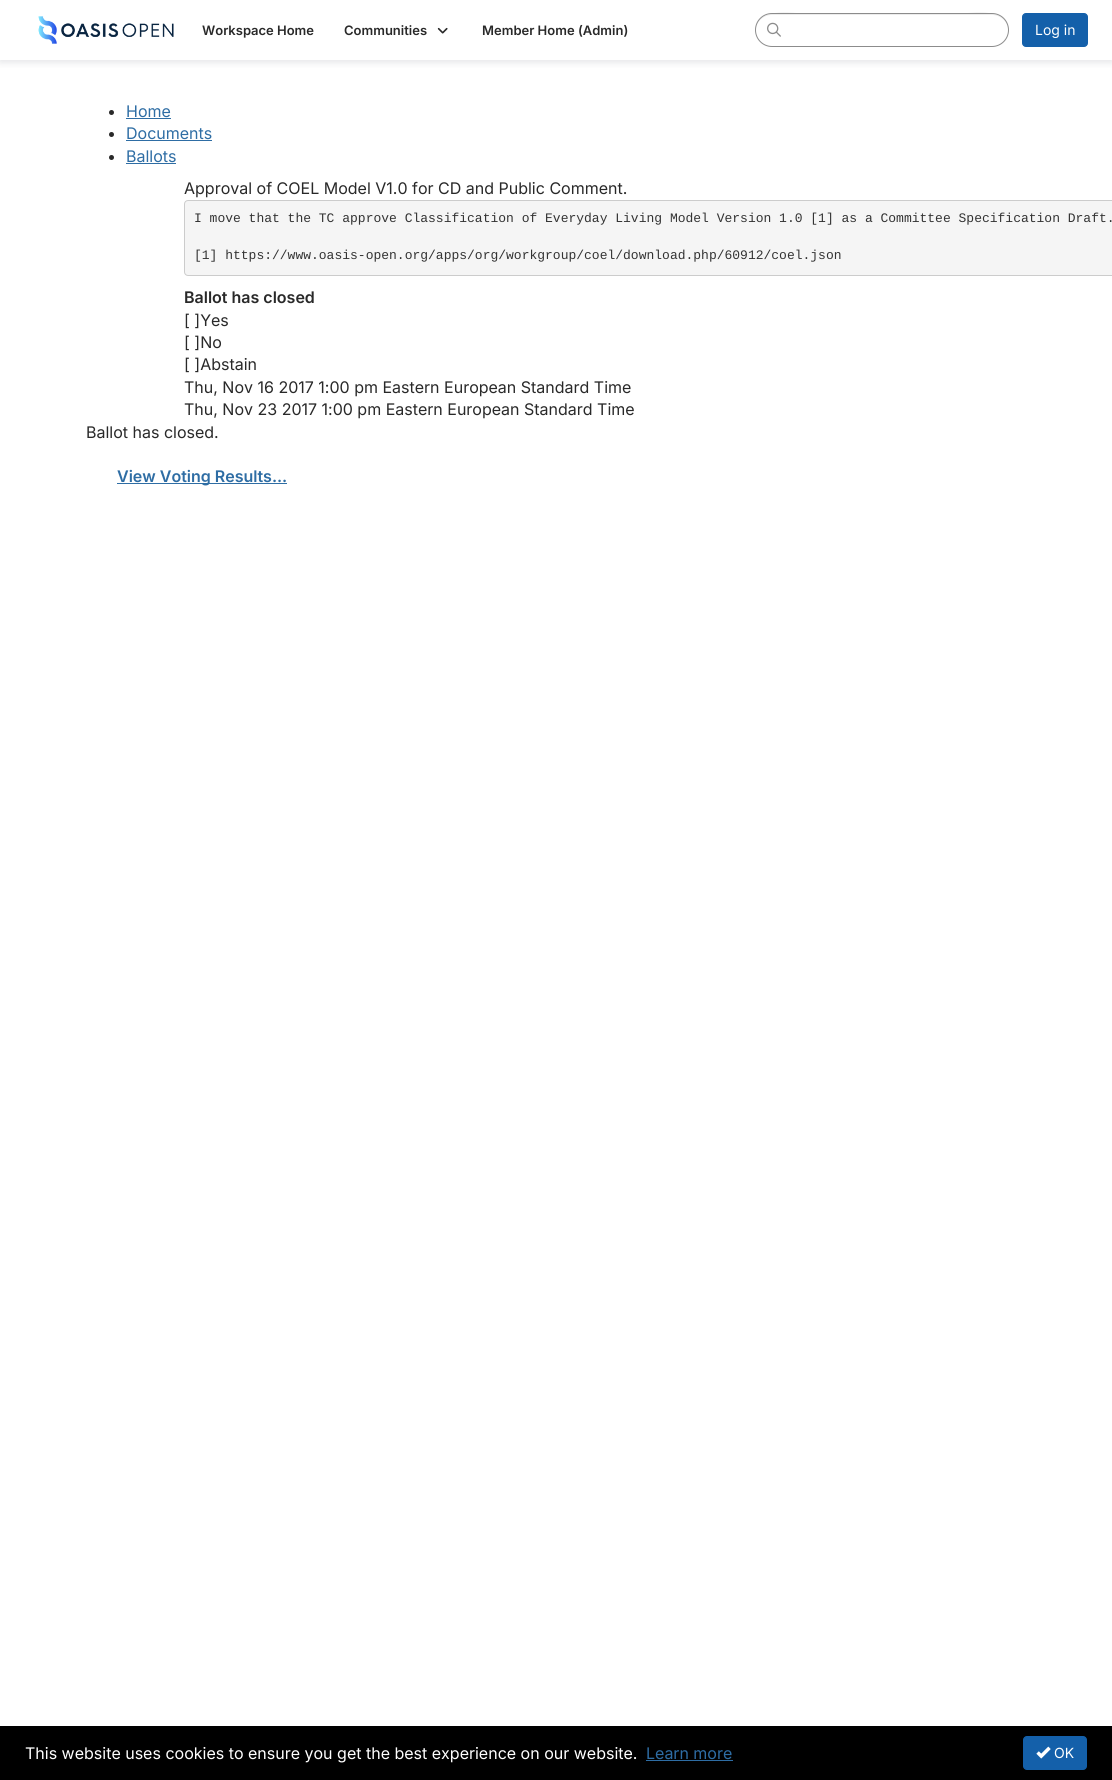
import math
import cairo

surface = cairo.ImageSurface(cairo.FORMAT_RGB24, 1112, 1780)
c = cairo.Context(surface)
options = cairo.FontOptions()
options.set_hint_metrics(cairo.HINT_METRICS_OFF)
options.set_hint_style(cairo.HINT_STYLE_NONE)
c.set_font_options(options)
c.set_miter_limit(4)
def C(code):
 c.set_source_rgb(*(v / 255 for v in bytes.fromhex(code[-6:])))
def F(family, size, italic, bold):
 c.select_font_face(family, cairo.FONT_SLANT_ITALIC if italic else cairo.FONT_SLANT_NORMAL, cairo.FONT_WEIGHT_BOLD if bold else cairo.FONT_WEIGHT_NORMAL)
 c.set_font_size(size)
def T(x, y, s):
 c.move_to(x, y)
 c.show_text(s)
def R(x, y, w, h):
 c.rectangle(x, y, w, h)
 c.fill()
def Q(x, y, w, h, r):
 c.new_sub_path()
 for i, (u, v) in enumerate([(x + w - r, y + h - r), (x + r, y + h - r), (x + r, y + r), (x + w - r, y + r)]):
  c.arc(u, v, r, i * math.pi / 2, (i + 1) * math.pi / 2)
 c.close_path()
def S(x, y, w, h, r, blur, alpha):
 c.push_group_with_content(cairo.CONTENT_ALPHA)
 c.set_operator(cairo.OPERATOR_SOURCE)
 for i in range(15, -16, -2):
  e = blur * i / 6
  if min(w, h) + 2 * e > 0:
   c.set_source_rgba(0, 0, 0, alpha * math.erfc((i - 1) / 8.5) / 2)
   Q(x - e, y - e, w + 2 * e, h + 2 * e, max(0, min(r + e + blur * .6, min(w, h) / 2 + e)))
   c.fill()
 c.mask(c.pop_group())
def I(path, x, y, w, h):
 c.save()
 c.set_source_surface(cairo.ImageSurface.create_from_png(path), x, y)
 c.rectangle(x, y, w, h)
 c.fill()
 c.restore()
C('ffffff')
c.paint()
c.save()
c.rectangle(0,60,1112,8)
c.clip()
C('838791')
S(0,2,1112,60,0,4,.24)
c.restore()
I('1.png',38,16,136,28)
F('Inter SemiBold',13,0,0)
C('292929')
T(202,35,'Workspace Home')
T(344,35,'Communities')
I('2.png',437,27,11,7)
T(482,35,'Member Home (Admin)')
C('ececec')
c.new_path()
c.move_to(772,15)
c.line_to(992,15)
c.curve_to(1001,15,1008,22,1008,30)
c.curve_to(1009,5,965,14,955,14)
c.line_to(809,14)
c.curve_to(799,14,755,5,756,30)
c.curve_to(756,22,763,15,772,15)
c.close_path()
c.fill()
Q(755.5,13.5,253,33,16.5)
C('8c8c8c')
c.set_line_width(1)
c.stroke()
I('3.png',767,22,14,15)
C('1460aa')
Q(1022.5,13.5,65,33,3.5)
c.fill_preserve()
c.stroke()
F('Inter',14,0,0)
C('ffffff')
T(1035,35,'Log in')
C('292929')
c.new_path()
c.arc(111.5,112.5,2.5,0,2 * math.pi)
c.fill()
F('Inter',16,0,0)
C('2e6da4')
T(126,117,'Home')
R(126,118,45,1)
C('292929')
c.new_path()
c.arc(111.5,134.5,2.5,0,2 * math.pi)
c.fill()
C('2e6da4')
T(126,139,'Documents')
R(126,140,86,1)
C('292929')
c.new_path()
c.arc(111.5,157.5,2.5,0,2 * math.pi)
c.fill()
C('2e6da4')
T(126,162,'Ballots')
R(126,163,50,1)
C('292929')
T(184,194,'Approval of COEL Model V1.0 for CD and Public Comment.')
C('f5f5f5')
Q(184.5,200.5,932,75,3.5)
c.fill_preserve()
C('cccccc')
c.stroke()
F('Liberation Mono',13,0,0)
C('333333')
T(194,222,'I move that the TC approve Classification of Everyday Living Model Version 1.0 [1] as a Committee Specification Draft.')
T(194,259,'[1] https://www.oasis-open.org/apps/org/workgroup/coel/download.php/60912/coel.json')
F('Inter SemiBold',16,0,0)
C('292929')
T(184,303,'Ballot has closed')
F('Inter',16,0,0)
T(184,326,'[ ]Yes')
T(184,348,'[ ]No')
T(184,370,'[ ]Abstain')
T(184,393,'Thu, Nov 16 2017 1:00 pm Eastern European Standard Time')
T(184,415,'Thu, Nov 23 2017 1:00 pm Eastern European Standard Time')
T(86,438,'Ballot has closed.')
C('2e6da4')
R(117,483,170,1)
F('Inter SemiBold',16,0,0)
T(117,482,'View Voting Results...')
C('000000')
R(0,1726,1112,54)
F('Inter',16,0,0)
C('ffffff')
T(25,1759,'This website uses cookies to ensure you get the best experience on our website.')
C('2e6da4')
T(646,1759,'Learn more')
R(646,1760,87,1)
C('1460aa')
Q(1023.5,1736.5,63,33,3.5)
c.fill_preserve()
c.stroke()
I('4.png',1036,1746,15,13)
F('Inter',14,0,0)
C('ffffff')
T(1054,1758,'OK')
surface.write_to_png('o.png')
